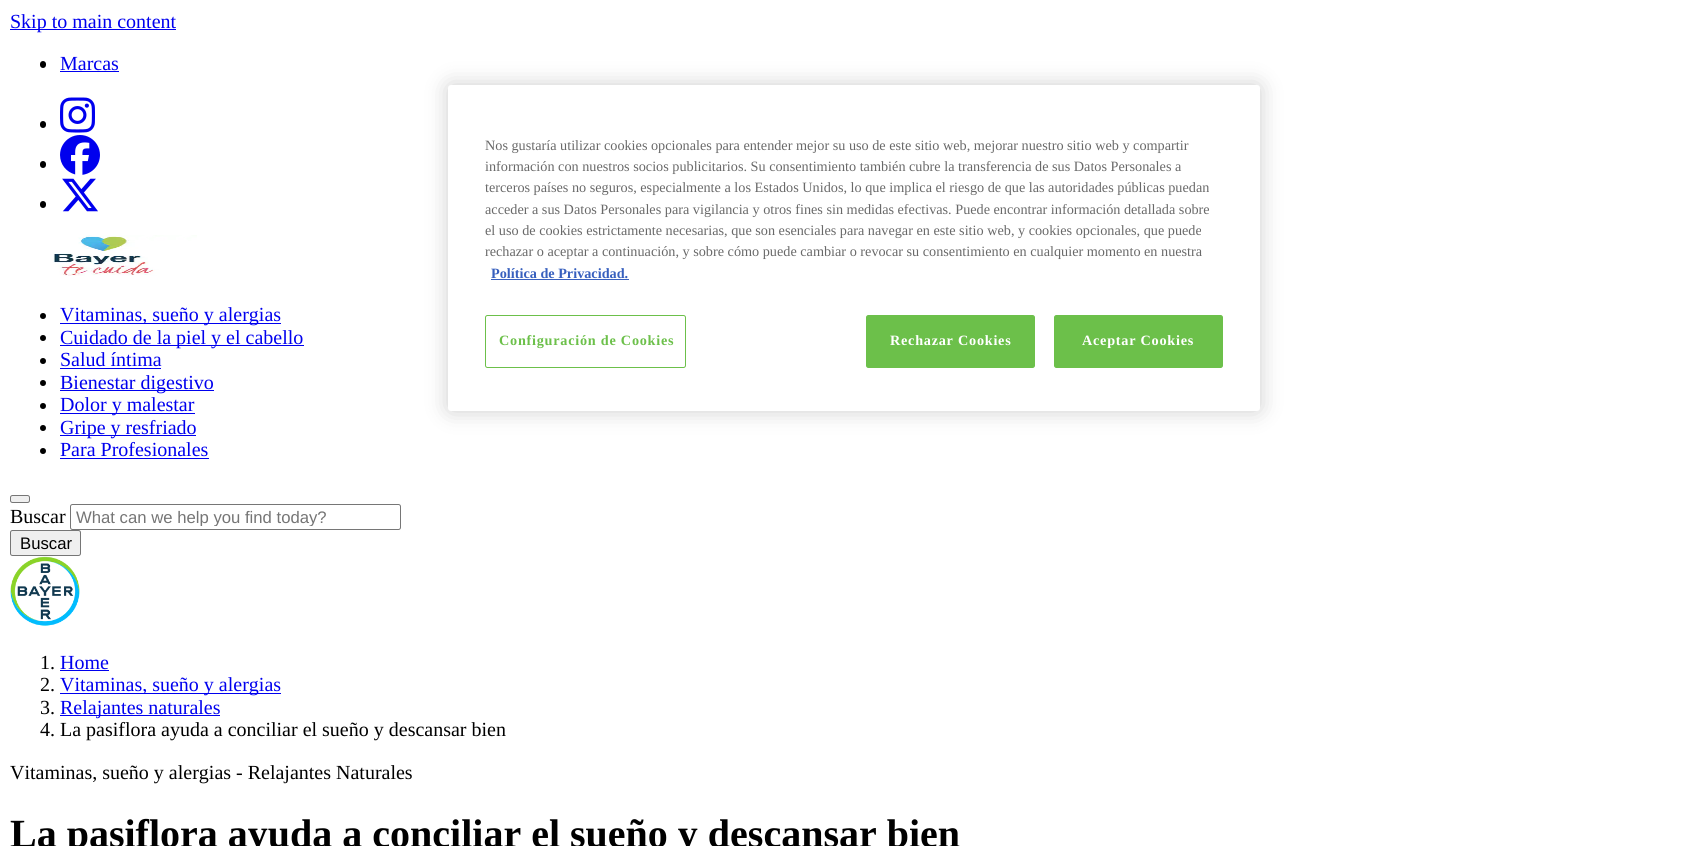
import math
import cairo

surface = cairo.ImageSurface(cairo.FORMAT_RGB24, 1689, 846)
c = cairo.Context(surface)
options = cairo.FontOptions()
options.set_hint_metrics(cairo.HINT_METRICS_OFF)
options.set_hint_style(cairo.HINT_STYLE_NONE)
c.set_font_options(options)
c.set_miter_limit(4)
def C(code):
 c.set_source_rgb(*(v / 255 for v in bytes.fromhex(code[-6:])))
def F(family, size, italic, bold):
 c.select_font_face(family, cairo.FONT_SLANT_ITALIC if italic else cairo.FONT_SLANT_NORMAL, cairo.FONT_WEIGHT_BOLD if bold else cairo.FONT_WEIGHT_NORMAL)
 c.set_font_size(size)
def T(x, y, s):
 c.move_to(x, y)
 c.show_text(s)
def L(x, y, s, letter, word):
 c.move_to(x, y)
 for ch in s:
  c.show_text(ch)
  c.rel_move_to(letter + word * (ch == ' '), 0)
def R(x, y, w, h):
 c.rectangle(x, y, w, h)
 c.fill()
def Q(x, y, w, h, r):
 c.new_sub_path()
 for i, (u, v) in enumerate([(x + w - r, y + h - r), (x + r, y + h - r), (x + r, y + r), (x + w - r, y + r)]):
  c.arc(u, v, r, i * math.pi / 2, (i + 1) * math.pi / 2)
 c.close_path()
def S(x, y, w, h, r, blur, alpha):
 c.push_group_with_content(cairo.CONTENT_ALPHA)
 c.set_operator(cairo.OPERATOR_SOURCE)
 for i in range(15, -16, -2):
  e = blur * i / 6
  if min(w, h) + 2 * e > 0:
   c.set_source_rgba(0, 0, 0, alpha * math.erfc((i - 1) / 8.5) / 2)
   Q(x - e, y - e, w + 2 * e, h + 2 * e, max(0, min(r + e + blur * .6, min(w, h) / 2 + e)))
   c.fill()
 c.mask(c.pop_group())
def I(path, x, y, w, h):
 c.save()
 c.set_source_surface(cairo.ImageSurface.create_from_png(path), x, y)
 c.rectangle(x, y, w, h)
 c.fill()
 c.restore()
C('ffffff')
c.paint()
C('0000ee')
R(10,29,166,1)
F('Liberation Serif',20,0,0)
T(10,28,'Skip to main content')
C('000000')
Q(40,61,6,7,3)
c.fill()
C('0000ee')
T(60,70,'Marcas')
R(60,71,59,1)
C('000000')
Q(40,121,6,7,3)
c.fill()
I('1.png',60,97,35,36)
Q(40,161,6,7,3)
c.fill()
I('2.png',60,135,40,40)
Q(40,201,6,7,3)
c.fill()
I('3.png',62,178,36,34)
I('4.png',53,235,144,41)
c.arc(43,316,3,0,2 * math.pi)
c.fill()
C('0000ee')
R(60,323,221,1)
T(60,321,'Vitaminas, sueño y alergias')
C('000000')
c.new_path()
c.arc(43,338,3,0,2 * math.pi)
c.fill()
C('0000ee')
R(60,345,244,1)
T(60,344,'Cuidado de la piel y el cabello')
C('000000')
c.new_path()
c.arc(43,361,3,0,2 * math.pi)
c.fill()
C('0000ee')
T(60,366,'Salud íntima')
R(60,368,101,1)
C('000000')
c.new_path()
c.arc(43,383,3,0,2 * math.pi)
c.fill()
C('0000ee')
R(60,390,154,1)
T(60,389,'Bienestar digestivo')
C('000000')
c.new_path()
c.arc(43,406,3,0,2 * math.pi)
c.fill()
C('0000ee')
R(60,413,135,1)
T(60,411,'Dolor y malestar')
C('000000')
c.new_path()
c.arc(43,428,3,0,2 * math.pi)
c.fill()
C('0000ee')
R(60,435,136,1)
T(60,434,'Gripe y resfriado')
C('000000')
c.new_path()
c.arc(43,451,3,0,2 * math.pi)
c.fill()
C('0000ee')
T(60,456,'Para Profesionales')
R(60,458,149,1)
C('efefef')
Q(10.5,495.5,19,7,2)
c.fill_preserve()
C('767676')
c.set_line_width(1)
c.stroke()
C('000000')
T(10,523,'Buscar')
Q(70.5,504.5,330,25,2)
C('767676')
c.stroke()
c.save()
c.rectangle(75,508,321,18)
c.clip()
F('Liberation Sans',16.7,0,0)
C('757575')
T(76,523,'What can we help you find today?')
c.restore()
C('efefef')
Q(10.5,530.5,70,25,2)
c.fill_preserve()
C('767676')
c.stroke()
F('Liberation Sans',16.7,0,0)
C('000000')
T(20,549,'Buscar')
I('5.png',10,556,70,70)
F('Liberation Serif',20,0,0)
T(40,669,'1.')
C('0000ee')
T(60,669,'Home')
R(60,670,49,1)
C('000000')
T(40,691,'2.')
C('0000ee')
R(60,693,221,1)
T(60,691,'Vitaminas, sueño y alergias')
C('000000')
T(40,714,'3.')
C('0000ee')
R(60,715,160,1)
T(60,714,'Relajantes naturales')
C('000000')
T(40,736,'4. La pasiflora ayuda a conciliar el sueño y descansar bien')
T(10,779,'Vitaminas, sueño y alergias - Relajantes Naturales')
F('Liberation Serif',40,0,1)
T(10,847,'La pasiflora ayuda a conciliar el sueño y descansar bien')
C('000000')
S(448,85,812,326,3,11,.2)
C('ffffff')
Q(448,85,812,326,3)
c.fill()
F('Liberation Serif',14.23,0,0)
C('696969')
T(485,150,'Nos gustaría utilizar cookies opcionales para entender mejor su uso de este sitio web, mejorar nuestro sitio web y compartir')
T(485,171,'información con nuestros socios publicitarios. Su consentimiento también cubre la transferencia de sus Datos Personales a')
T(485,192,'terceros países no seguros, especialmente a los Estados Unidos, lo que implica el riesgo de que las autoridades públicas puedan')
T(485,214,'acceder a sus Datos Personales para vigilancia y otros fines sin medidas efectivas. Puede encontrar información detallada sobre')
T(485,235,'el uso de cookies estrictamente necesarias, que son esenciales para navegar en este sitio web, y cookies opcionales, que puede')
T(485,256,'rechazar o aceptar a continuación, y sobre cómo puede cambiar o revocar su consentimiento en cualquier momento en nuestra')
F('Liberation Serif',14.23,0,1)
C('3860be')
T(491,278,'Política de Privacidad.')
R(491,279,138,1)
Q(485.5,315.5,200,52,2)
C('6cc04a')
c.stroke()
L(499,345,'Configuración de Cookies',.75,0)
Q(866.5,315.5,168,52,2)
c.fill_preserve()
c.stroke()
C('ffffff')
L(890,345,'Rechazar Cookies',.75,0)
C('6cc04a')
Q(1054.5,315.5,168,52,2)
c.fill_preserve()
c.stroke()
C('ffffff')
L(1082,345,'Aceptar Cookies',.75,0)
surface.write_to_png('o.png')
